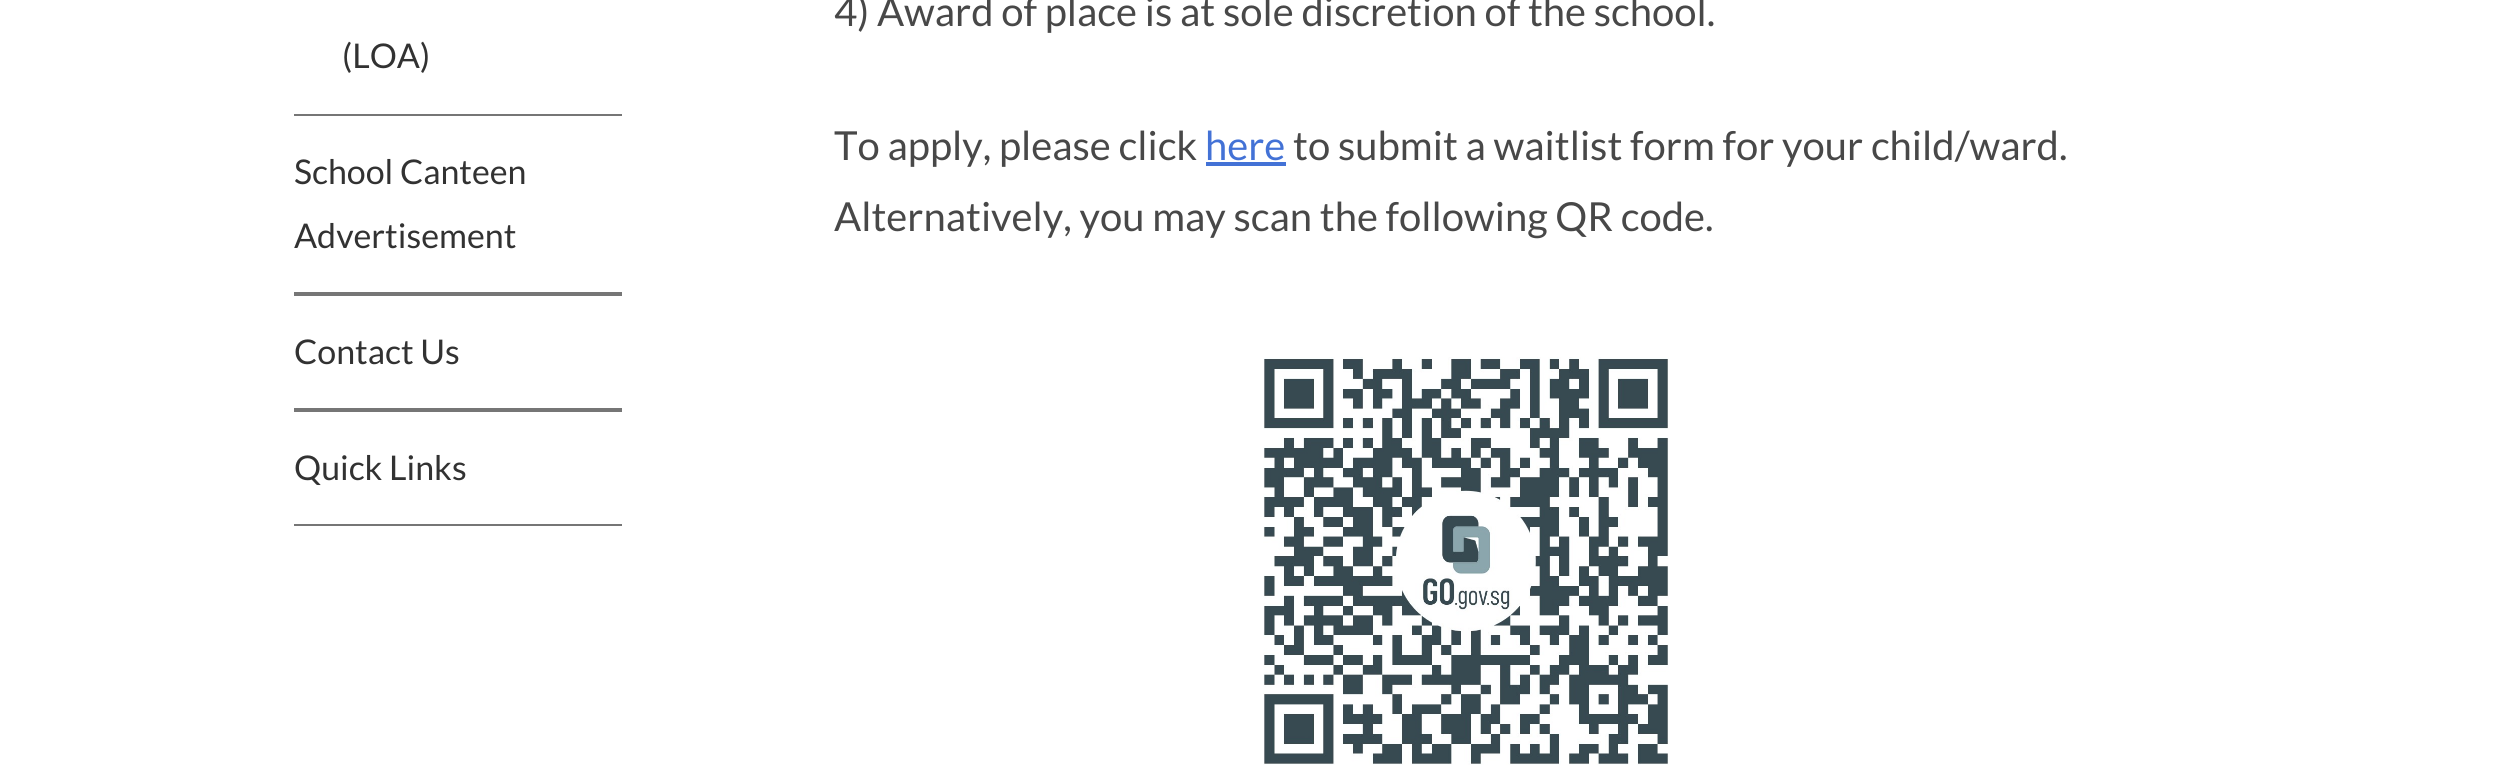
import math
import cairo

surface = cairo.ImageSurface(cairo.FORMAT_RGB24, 2507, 774)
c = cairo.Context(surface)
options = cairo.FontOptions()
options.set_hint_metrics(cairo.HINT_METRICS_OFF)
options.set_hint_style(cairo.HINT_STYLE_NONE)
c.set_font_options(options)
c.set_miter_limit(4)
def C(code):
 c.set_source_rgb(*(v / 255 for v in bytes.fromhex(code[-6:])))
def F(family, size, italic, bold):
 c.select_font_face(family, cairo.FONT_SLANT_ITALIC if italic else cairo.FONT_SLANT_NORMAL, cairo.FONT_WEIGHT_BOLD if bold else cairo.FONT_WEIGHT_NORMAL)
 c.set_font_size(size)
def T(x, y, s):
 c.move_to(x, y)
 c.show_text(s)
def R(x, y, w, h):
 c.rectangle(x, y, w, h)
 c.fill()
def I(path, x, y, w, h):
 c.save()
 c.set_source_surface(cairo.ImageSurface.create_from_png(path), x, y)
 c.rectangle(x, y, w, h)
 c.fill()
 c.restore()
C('ffffff')
c.paint()
F('Lato',34,0,0)
C('323232')
T(342,68,'(LOA)')
C('767676')
R(294,114,328,2)
R(294,292,328,4)
C('323232')
T(294,184,'School Canteen')
T(294,248,'Advertisement')
C('767676')
R(294,408,328,4)
C('323232')
T(294,364,'Contact Us')
C('767676')
R(294,524,328,2)
C('323232')
T(294,480,'Quick Links')
F('Lato',40,0,0)
C('484848')
T(834,26,'4) Award of place is at sole discretion of the school.')
T(834,160,'To apply, please click')
C('4372d6')
T(1205,160,'here')
R(1206,162,80,4)
C('484848')
T(1293,160,'to submit a waitlist form for your child/ward.')
T(834,231,'Alternatively, you may scan the following QR code.')
I('1.png',1263,357,406,408)
surface.write_to_png('o.png')
